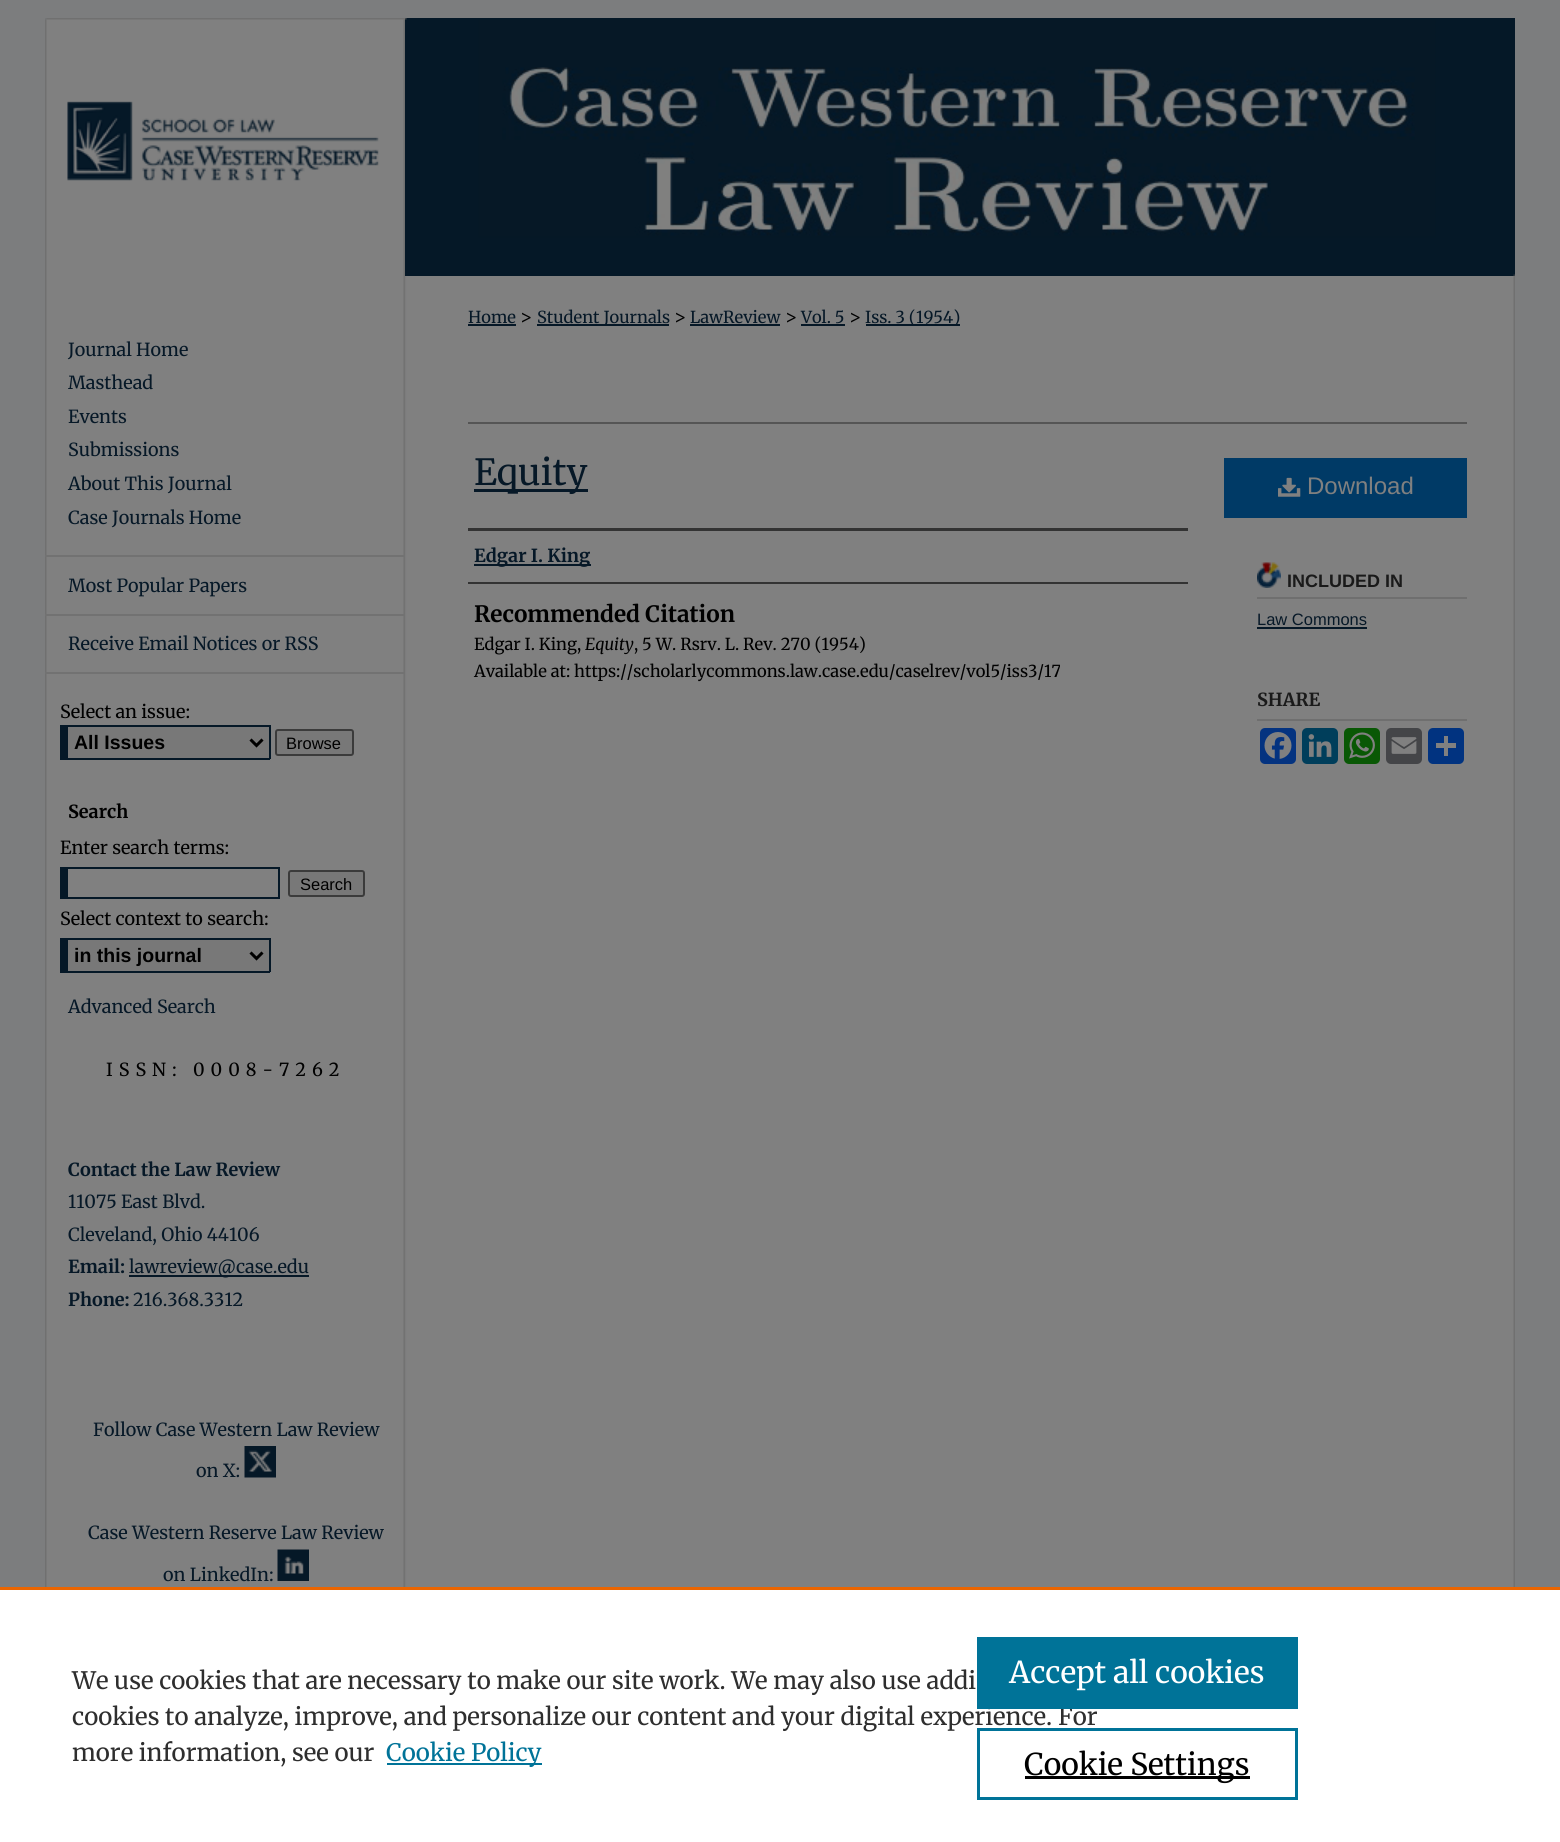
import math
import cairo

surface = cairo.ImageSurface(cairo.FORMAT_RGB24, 1560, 1842)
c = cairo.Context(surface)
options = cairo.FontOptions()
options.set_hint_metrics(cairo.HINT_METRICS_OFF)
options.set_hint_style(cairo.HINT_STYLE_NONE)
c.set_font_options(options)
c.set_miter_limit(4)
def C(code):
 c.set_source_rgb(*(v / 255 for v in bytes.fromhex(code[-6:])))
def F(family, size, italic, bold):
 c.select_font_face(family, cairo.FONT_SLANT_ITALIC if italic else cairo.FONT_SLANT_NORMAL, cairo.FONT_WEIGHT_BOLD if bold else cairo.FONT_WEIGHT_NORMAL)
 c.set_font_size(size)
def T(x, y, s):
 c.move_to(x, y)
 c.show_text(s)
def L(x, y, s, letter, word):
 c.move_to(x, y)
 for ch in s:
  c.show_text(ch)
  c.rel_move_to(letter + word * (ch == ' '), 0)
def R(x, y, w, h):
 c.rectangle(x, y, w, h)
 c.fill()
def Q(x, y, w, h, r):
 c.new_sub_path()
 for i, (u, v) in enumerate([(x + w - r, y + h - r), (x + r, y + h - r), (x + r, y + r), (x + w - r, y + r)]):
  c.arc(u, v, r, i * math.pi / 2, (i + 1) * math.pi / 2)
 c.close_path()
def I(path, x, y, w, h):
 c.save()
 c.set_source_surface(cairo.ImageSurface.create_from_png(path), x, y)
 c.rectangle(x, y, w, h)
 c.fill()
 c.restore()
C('7c7d7e')
c.paint()
I('1.png',45,18,360,258)
I('2.png',405,18,1110,258)
I('3.png',45,276,1470,1311)
F('Merriweather',18,0,0)
C('061827')
T(68,356,'Journal Home')
T(68,389,'Masthead')
T(68,423,'Events')
T(68,456,'Submissions')
T(68,490,'About This Journal')
T(68,524,'Case Journals Home')
C('727272')
R(45,555,360,2)
R(45,614,360,2)
C('061827')
T(68,592,'Most Popular Papers')
C('727272')
R(45,672,360,2)
C('061827')
T(68,650,'Receive Email Notices or RSS')
C('000000')
T(60,718,'Select an issue:')
C('787878')
R(68,727,201,31)
C('051827')
R(60,725,210,2)
R(269,725,2,34)
R(60,758,210,2)
R(60,725,8,34)
c.new_path()
c.move_to(250.5,739.5)
c.line_to(256.5,745.5)
c.line_to(262.5,739.5)
C('000000')
c.set_line_width(3)
c.stroke()
F('Liberation Sans',19.5,0,1)
T(74,749,'All Issues')
C('787878')
Q(276,730,77,25,2)
c.fill_preserve()
C('3b3b3b')
c.set_line_width(2)
c.stroke()
F('Liberation Sans',16.5,0,0)
C('000000')
T(286,749,'Browse')
F('Merriweather',18,0,1)
T(68,818,'Search')
F('Merriweather',18,0,0)
T(60,854,'Enter search terms:')
C('051827')
R(60,867,219,2)
R(278,867,2,32)
R(60,897,219,2)
R(60,867,8,32)
C('787878')
Q(289,871,75,25,2)
c.fill_preserve()
C('3b3b3b')
c.stroke()
F('Liberation Sans',16.5,0,0)
C('000000')
T(300,890,'Search')
F('Merriweather',18,0,0)
T(60,925,'Select context to search:')
C('787878')
R(68,940,201,31)
C('051827')
R(60,938,210,2)
R(269,938,2,34)
R(60,971,210,2)
R(60,938,8,34)
c.new_path()
c.move_to(250.5,952.5)
c.line_to(256.5,958.5)
c.line_to(262.5,952.5)
C('000000')
c.set_line_width(3)
c.stroke()
F('Liberation Sans',19.5,0,1)
T(74,962,'in this journal')
F('Merriweather',18,0,0)
C('061827')
T(68,1013,'Advanced Search')
C('000000')
L(106,1076,'ISSN: 0008-7262',6,0)
F('Merriweather',18,0,1)
C('061827')
T(68,1176,'Contact the Law Review')
F('Merriweather',18,0,0)
T(68,1208,'11075 East Blvd.')
T(68,1241,'Cleveland, Ohio 44106')
F('Merriweather',18,0,1)
T(68,1273,'Email:')
R(129,1275,180,2)
F('Merriweather',18,0,0)
T(129,1273,'lawreview@case.edu')
F('Merriweather',18,0,1)
T(68,1306,'Phone:')
F('Merriweather',18,0,0)
T(133,1306,'216.368.3312')
T(93,1436,'Follow Case Western Law Review')
T(196,1477,'on X:')
I('4.png',244,1446,32,32)
T(88,1539,'Case Western Reserve Law Review')
T(163,1581,'on LinkedIn:')
I('5.png',277,1549,32,32)
F('Merriweather',16.5,0,0)
T(468,323,'Home')
R(468,324,48,2)
F('Merriweather',18,0,0)
C('000000')
T(520,323,'>')
C('061827')
R(537,324,132,2)
F('Merriweather',16.5,0,0)
T(537,323,'Student Journals')
F('Merriweather',18,0,0)
C('000000')
T(674,323,'>')
F('Merriweather',16.5,0,0)
C('061827')
T(690,323,'LawReview')
R(690,324,90,2)
F('Merriweather',18,0,0)
C('000000')
T(785,323,'>')
F('Merriweather',16.5,0,0)
C('061827')
T(801,323,'Vol. 5')
R(801,324,44,2)
F('Merriweather',18,0,0)
C('000000')
T(849,323,'>')
C('061827')
R(866,324,94,2)
F('Merriweather',16.5,0,0)
T(865,323,'Iss. 3 (1954)')
C('555555')
R(468,422,999,2)
C('061827')
R(474,489,114,3)
F('Merriweather',36,0,0)
T(474,485,'Equity')
C('333333')
R(468,528,720,3)
R(468,582,720,2)
C('061827')
R(474,564,117,2)
F('Merriweather',18,0,1)
T(474,562,'Edgar I. King')
F('Merriweather',22.5,0,1)
C('000000')
T(474,622,'Recommended Citation')
F('Merriweather',16.5,0,0)
T(474,650,'Edgar I. King,')
F('Merriweather',16.5,1,0)
T(585,650,'Equity')
F('Merriweather',16.5,0,0)
T(634,650,', 5 W. Rsrv. L. Rev. 270 (1954)')
T(474,677,'Available at: https://scholarlycommons.law.case.edu/caselrev/vol5/iss3/17')
C('003a66')
R(1224,458,243,60)
I('6.png',1278,477,23,20)
F('Liberation Sans',24,0,0)
C('808080')
T(1307,494,'Download')
I('7.png',1257,562,24,26)
C('6f6f6f')
R(1257,597,210,2)
F('Liberation Sans',18,0,1)
C('1a1a1a')
T(1287,587,'INCLUDED IN')
F('Liberation Sans',16.5,0,0)
C('061827')
T(1257,625,'Law Commons')
R(1257,627,110,2)
C('6f6f6f')
R(1257,719,210,2)
F('Merriweather',18,0,1)
C('1a1a1a')
T(1257,706,'SHARE')
C('043380')
Q(1260,728,36,36,5)
c.fill()
I('8.png',1264,732,28,27)
C('003e5b')
Q(1302,728,36,36,5)
c.fill()
I('9.png',1308,734,24,23)
C('095805')
Q(1344,728,36,36,5)
c.fill()
I('10.png',1349,732,26,27)
C('444548')
Q(1386,728,36,36,5)
c.fill()
I('11.png',1391,737,26,17)
C('013380')
Q(1428,728,36,36,5)
c.fill()
C('808080')
R(1444,736,4,20)
R(1436,743,20,5)
C('ffffff')
R(0,1590,1560,252)
C('eb6500')
R(0,1587,1560,3)
F('Merriweather',24,0,0)
C('2e2e2e')
T(72,1689,'We use cookies that are necessary to make our site work. We may also use addi')
T(72,1725,'cookies to analyze, improve, and personalize our content and your digital experience. For')
T(72,1761,'more information, see our')
C('007398')
R(387,1763,155,2)
T(386,1761,'Cookie Policy')
R(977,1637,321,72)
F('Merriweather',30,0,0)
C('ffffff')
T(1009,1683,'Accept all cookies')
c.rectangle(978.5,1729.5,318,69)
C('007398')
c.stroke()
C('000000')
R(1025,1776,225,3)
T(1024,1775,'Cookie Settings')
surface.write_to_png('o.png')
